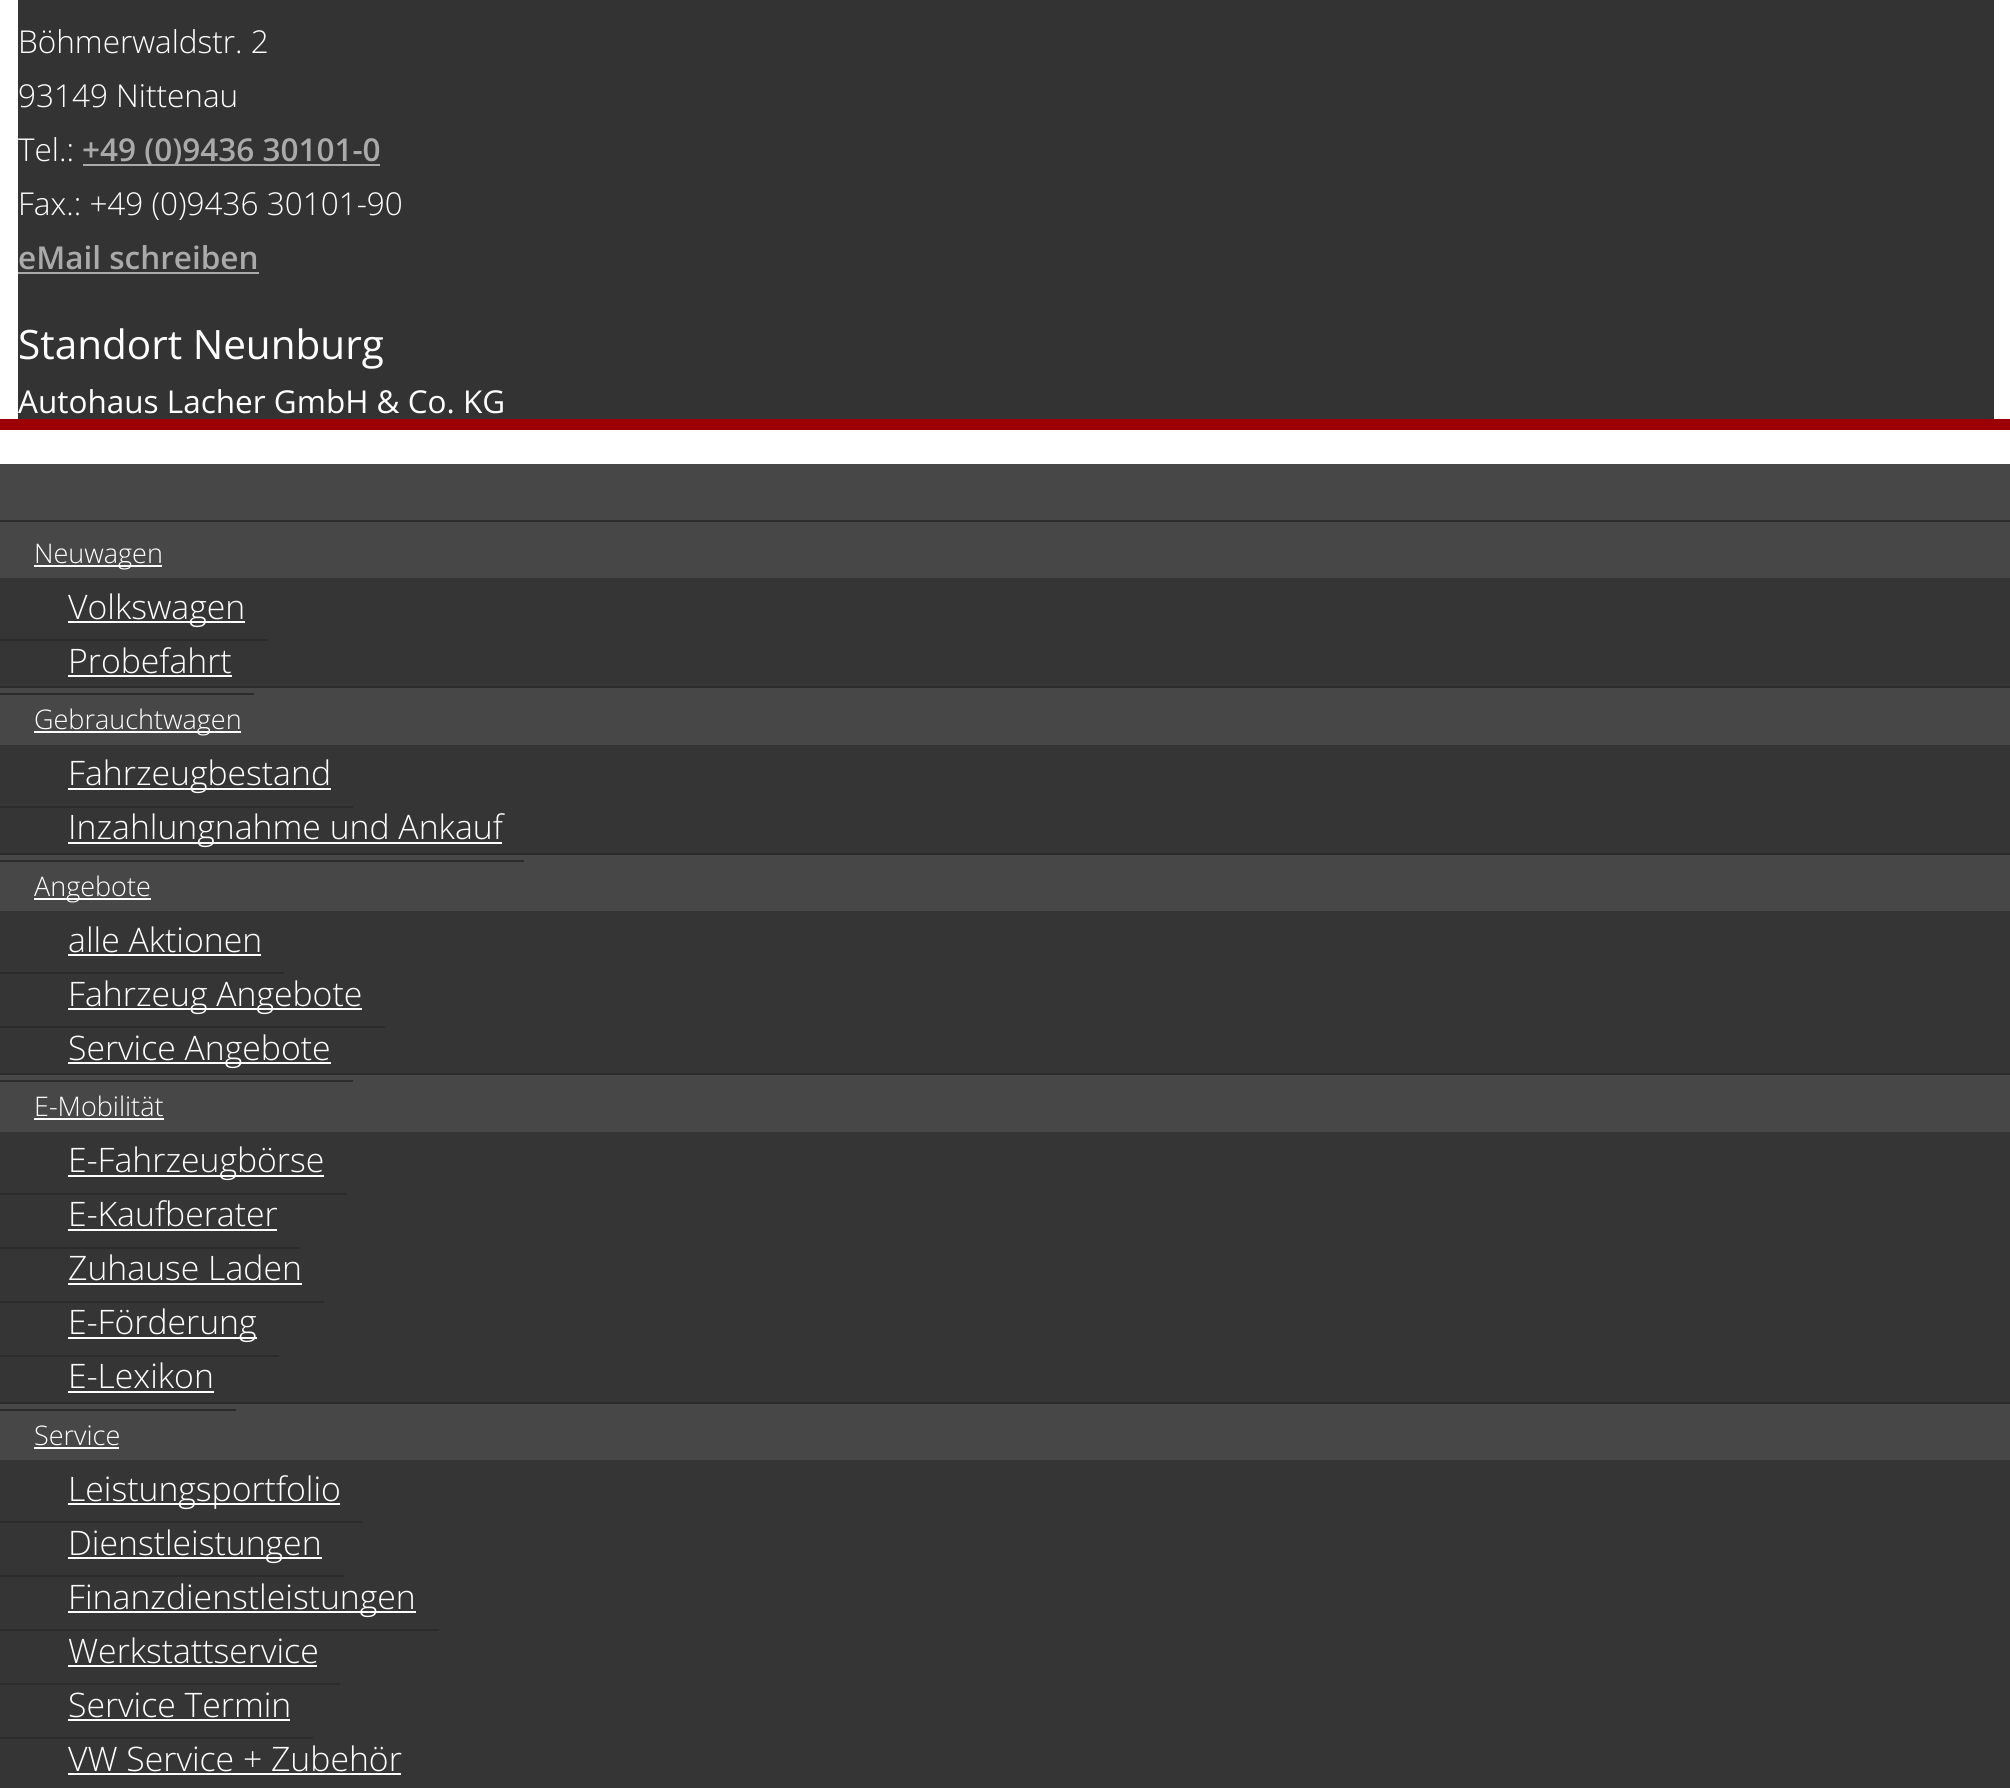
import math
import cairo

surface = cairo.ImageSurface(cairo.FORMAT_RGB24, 2010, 1788)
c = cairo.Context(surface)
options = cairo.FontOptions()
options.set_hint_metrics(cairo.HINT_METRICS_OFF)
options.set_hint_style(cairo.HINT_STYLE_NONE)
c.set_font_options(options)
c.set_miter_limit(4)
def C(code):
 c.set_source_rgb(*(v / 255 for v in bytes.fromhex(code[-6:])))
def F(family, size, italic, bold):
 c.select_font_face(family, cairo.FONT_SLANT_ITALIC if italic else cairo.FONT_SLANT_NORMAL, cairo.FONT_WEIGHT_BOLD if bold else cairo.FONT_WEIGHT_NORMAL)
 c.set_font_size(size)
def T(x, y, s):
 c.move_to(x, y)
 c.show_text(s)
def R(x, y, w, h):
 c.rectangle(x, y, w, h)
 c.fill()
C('ffffff')
c.paint()
C('333333')
R(18,0,1976,419)
F('Open Sans Light',31.5,0,0)
C('ffffff')
T(18,53,'Böhmerwaldstr. 2')
T(18,107,'93149 Nittenau')
T(18,161,'Tel.:')
C('aaaaaa')
R(83,164,297,2)
F('Open Sans SemiBold',31.5,0,0)
T(82,161,'+49 (0)9436 30101-0')
F('Open Sans Light',31.5,0,0)
C('ffffff')
T(18,215,'Fax.: +49 (0)9436 30101-90')
F('Open Sans SemiBold',31.5,0,0)
C('aaaaaa')
T(18,269,'eMail schreiben')
R(18,272,241,2)
F('Open Sans',40.5,0,0)
C('ffffff')
T(18,359,'Standort Neunburg')
F('Open Sans',31.5,0,0)
T(18,413,'Autohaus Lacher GmbH & Co. KG')
C('9c0000')
R(0,419,2010,11)
C('474747')
R(0,464,2010,996)
C('2b2b2b')
R(0,520,2010,2)
R(0,686,2010,2)
C('ffffff')
R(34,565,128,2)
F('Open Sans Light',27,0,0)
T(34,563,'Neuwagen')
C('353535')
R(0,578,2010,108)
C('ffffff')
R(68,621,177,2)
F('Open Sans Light',33.75,0,0)
T(68,619,'Volkswagen')
C('2b2b2b')
R(0,639,268,2)
C('ffffff')
T(68,673,'Probefahrt')
C('2b2b2b')
R(0,693,254,2)
C('ffffff')
R(68,675,164,2)
C('2b2b2b')
R(0,853,2010,2)
C('ffffff')
R(34,731,207,2)
F('Open Sans Light',27,0,0)
T(34,729,'Gebrauchtwagen')
C('353535')
R(0,745,2010,108)
C('ffffff')
R(68,788,263,2)
F('Open Sans Light',33.75,0,0)
T(68,785,'Fahrzeugbestand')
C('2b2b2b')
R(0,806,353,2)
C('ffffff')
R(68,842,434,2)
T(68,839,'Inzahlungnahme und Ankauf')
C('2b2b2b')
R(0,860,524,2)
R(0,1073,2010,2)
C('ffffff')
R(34,898,117,2)
F('Open Sans Light',27,0,0)
T(34,896,'Angebote')
C('353535')
R(0,911,2010,162)
F('Open Sans Light',33.75,0,0)
C('ffffff')
T(68,952,'alle Aktionen')
C('2b2b2b')
R(0,972,284,2)
C('ffffff')
R(68,954,193,2)
R(68,1008,294,2)
T(68,1006,'Fahrzeug Angebote')
C('2b2b2b')
R(0,1026,385,2)
C('ffffff')
R(68,1062,263,2)
T(68,1060,'Service Angebote')
C('2b2b2b')
R(0,1080,353,2)
R(0,1402,2010,2)
F('Open Sans Light',27,0,0)
C('ffffff')
T(34,1116,'E-Mobilität')
R(34,1118,130,2)
C('353535')
R(0,1132,2010,270)
C('ffffff')
R(68,1175,256,2)
F('Open Sans Light',33.75,0,0)
T(68,1172,'E-Fahrzeugbörse')
C('2b2b2b')
R(0,1193,347,2)
C('ffffff')
T(68,1226,'E-Kaufberater')
C('2b2b2b')
R(0,1247,299,2)
C('ffffff')
R(68,1229,209,2)
T(68,1280,'Zuhause Laden')
C('2b2b2b')
R(0,1301,324,2)
C('ffffff')
R(68,1283,234,2)
R(68,1337,189,2)
T(68,1334,'E-Förderung')
C('2b2b2b')
R(0,1355,279,2)
C('ffffff')
T(68,1388,'E-Lexikon')
C('2b2b2b')
R(0,1409,236,2)
C('ffffff')
R(68,1391,146,2)
F('Open Sans Light',27,0,0)
T(34,1445,'Service')
R(34,1447,85,2)
C('353535')
R(0,1460,2010,328)
C('ffffff')
R(68,1503,272,2)
F('Open Sans Light',33.75,0,0)
T(68,1501,'Leistungsportfolio')
C('2b2b2b')
R(0,1521,362,2)
C('ffffff')
R(68,1557,254,2)
T(68,1555,'Dienstleistungen')
C('2b2b2b')
R(0,1575,344,2)
C('ffffff')
R(68,1611,348,2)
T(68,1609,'Finanzdienstleistungen')
C('2b2b2b')
R(0,1629,439,2)
C('ffffff')
T(68,1663,'Werkstattservice')
C('2b2b2b')
R(0,1683,340,2)
C('ffffff')
R(68,1665,249,2)
T(68,1717,'Service Termin')
C('2b2b2b')
R(0,1737,313,2)
C('ffffff')
R(68,1719,222,2)
T(68,1771,'VW Service + Zubehör')
R(68,1773,333,2)
surface.write_to_png('o.png')
